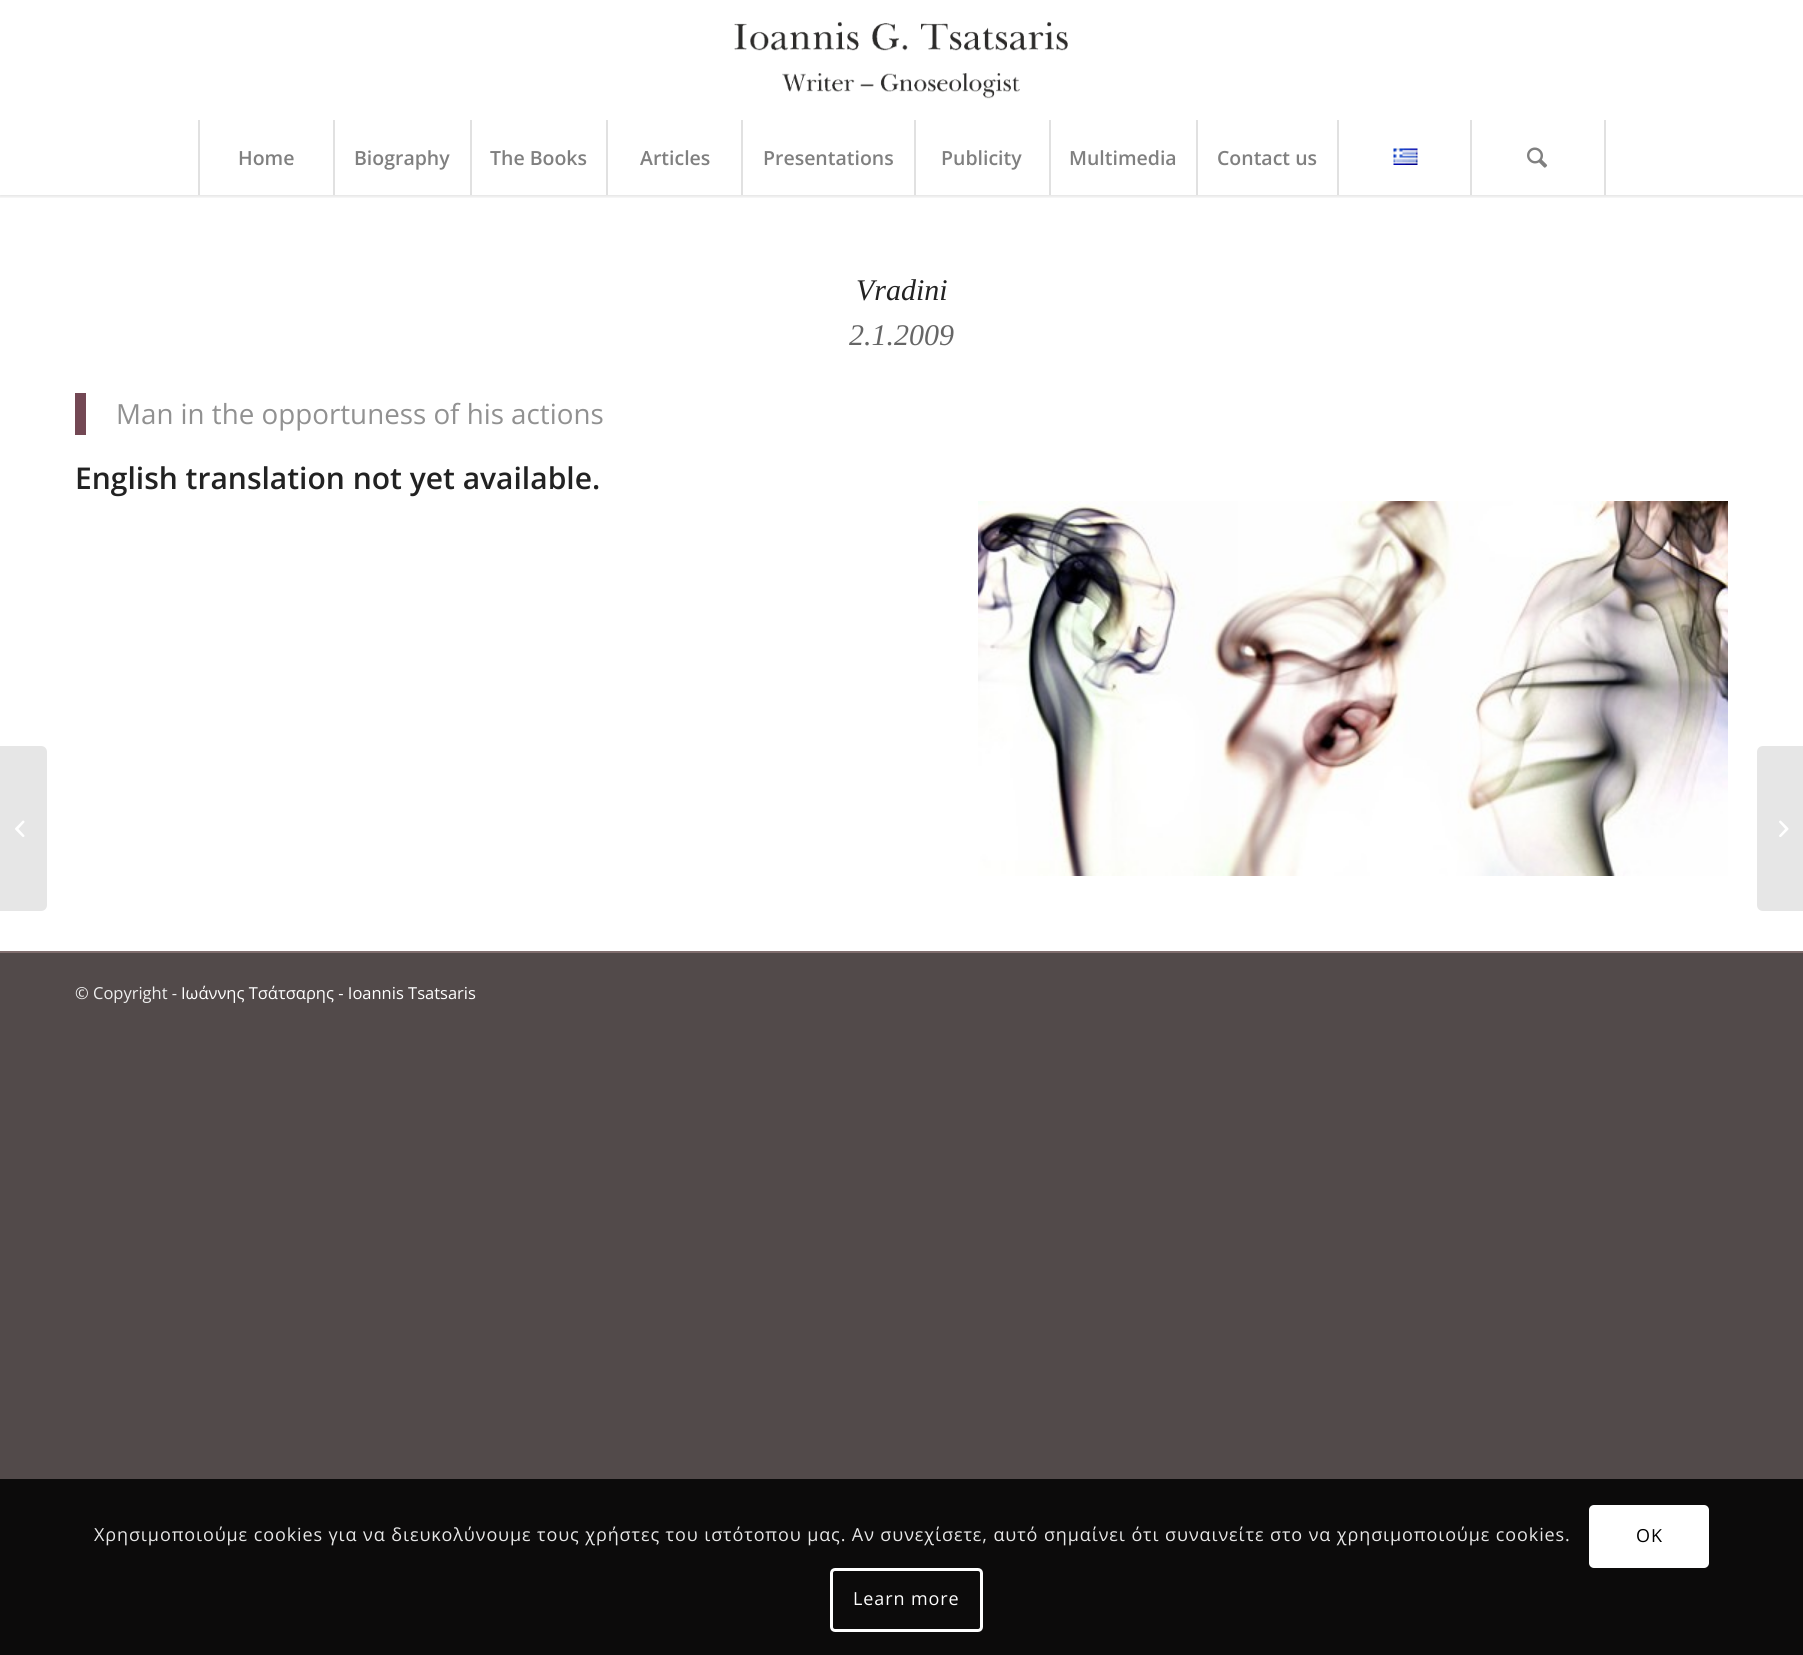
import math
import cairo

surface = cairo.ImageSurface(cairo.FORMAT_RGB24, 1803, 1655)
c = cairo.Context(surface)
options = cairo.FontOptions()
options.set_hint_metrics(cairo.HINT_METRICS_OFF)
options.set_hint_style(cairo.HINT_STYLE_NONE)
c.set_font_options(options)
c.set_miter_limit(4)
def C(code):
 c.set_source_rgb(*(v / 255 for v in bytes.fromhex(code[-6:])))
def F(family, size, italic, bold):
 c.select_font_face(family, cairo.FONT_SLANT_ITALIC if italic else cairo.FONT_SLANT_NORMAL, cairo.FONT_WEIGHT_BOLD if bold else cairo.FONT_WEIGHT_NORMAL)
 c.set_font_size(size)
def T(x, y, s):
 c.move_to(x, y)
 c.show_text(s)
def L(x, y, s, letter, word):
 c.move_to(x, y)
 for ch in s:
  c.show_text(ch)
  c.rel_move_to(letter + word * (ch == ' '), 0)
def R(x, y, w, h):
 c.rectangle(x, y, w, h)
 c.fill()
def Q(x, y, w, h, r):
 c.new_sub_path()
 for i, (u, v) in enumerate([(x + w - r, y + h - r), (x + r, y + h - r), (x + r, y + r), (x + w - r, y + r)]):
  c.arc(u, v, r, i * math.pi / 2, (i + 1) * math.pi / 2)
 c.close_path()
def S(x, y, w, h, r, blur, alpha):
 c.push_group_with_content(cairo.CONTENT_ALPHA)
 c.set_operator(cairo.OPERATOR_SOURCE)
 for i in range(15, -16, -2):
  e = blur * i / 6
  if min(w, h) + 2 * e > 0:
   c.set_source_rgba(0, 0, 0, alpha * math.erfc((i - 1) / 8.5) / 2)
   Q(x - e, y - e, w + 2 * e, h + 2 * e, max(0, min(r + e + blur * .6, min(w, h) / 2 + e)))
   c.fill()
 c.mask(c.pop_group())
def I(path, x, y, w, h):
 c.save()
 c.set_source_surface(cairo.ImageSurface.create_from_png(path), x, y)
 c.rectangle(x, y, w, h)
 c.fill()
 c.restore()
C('524a4a')
c.paint()
C('ffffff')
R(0,0,1803,951)
c.save()
c.rectangle(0,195,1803,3)
c.clip()
C('000000')
S(-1,-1,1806,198,0,1.5,.1)
c.restore()
I('1.png',734,22,334,77)
C('e1e1e1')
R(198,120,2,75)
F('Open Sans SemiBold',19.5,0,0)
C('808080')
T(238,165,'Home')
C('e1e1e1')
R(333,120,2,75)
C('808080')
T(354,165,'Biography')
C('e1e1e1')
R(470,120,2,75)
C('808080')
T(490,165,'The Books')
C('e1e1e1')
R(606,120,2,75)
C('808080')
T(640,165,'Articles')
C('e1e1e1')
R(741,120,2,75)
C('808080')
T(763,165,'Presentations')
C('e1e1e1')
R(914,120,2,75)
C('808080')
T(941,165,'Publicity')
C('e1e1e1')
R(1049,120,2,75)
C('808080')
T(1069,165,'Multimedia')
C('e1e1e1')
R(1196,120,2,75)
C('808080')
T(1217,165,'Contact us')
C('e1e1e1')
R(1337,120,2,75)
I('2.png',1393,148,25,17)
R(1604,120,2,75)
R(1470,120,2,75)
I('3.png',1527,147,21,21)
C('e6e6e6')
c.new_path()
c.move_to(0,746)
c.line_to(41,746)
c.curve_to(44.5,746,47,748.5,47,752)
c.line_to(47,905)
c.curve_to(47,908.5,44.5,911,41,911)
c.line_to(0,911)
c.close_path()
c.fill()
I('4.png',15,820,10,17)
F('Liberation Serif',30,1,0)
C('222222')
T(856,300,'Vradini')
C('666666')
T(849,345,'2.1.2009')
C('734854')
R(75,393,11,42)
F('Open Sans',27.75,0,0)
C('919191')
T(116,424,'Man in the opportuness of his actions')
F('Open Sans SemiBold',30,0,0)
C('222222')
T(75,489,'English translation not yet available.')
I('5.png',978,501,750,375)
C('806e6e')
R(0,951,1803,2)
F('Open Sans',16.5,0,0)
C('eeeeee')
T(75,999,'© Copyright -')
C('ffffff')
T(181,999,'Ιωάννης Τσάτσαρης - Ioannis Tsatsaris')
C('e6e6e6')
c.new_path()
c.move_to(1763,746)
c.line_to(1803,746)
c.line_to(1803,911)
c.line_to(1763,911)
c.curve_to(1759.5,911,1757,908.5,1757,905)
c.line_to(1757,752)
c.curve_to(1757,748.5,1759.5,746,1763,746)
c.close_path()
c.fill()
I('6.png',1779,820,10,17)
C('0c0b0b')
R(0,1479,1803,176)
F('Open Sans',18,0,0)
C('e7e7e7')
L(94,1541,'Χρησιμοποιούμε cookies για να διευκολύνουμε τους χρήστες του ιστότοπου μας. Αν συνεχίσετε, αυτό σημαίνει ότι συναινείτε στο να χρησιμοποιούμε cookies.',.9,0)
C('ffffff')
Q(1589,1505,120,63,5)
c.fill()
C('000000')
L(1636,1542,'OK',.9,0)
Q(831.5,1569.5,150,61,3.5)
C('ffffff')
c.set_line_width(3)
c.stroke()
L(853,1605,'Learn more',.9,0)
surface.write_to_png('o.png')
